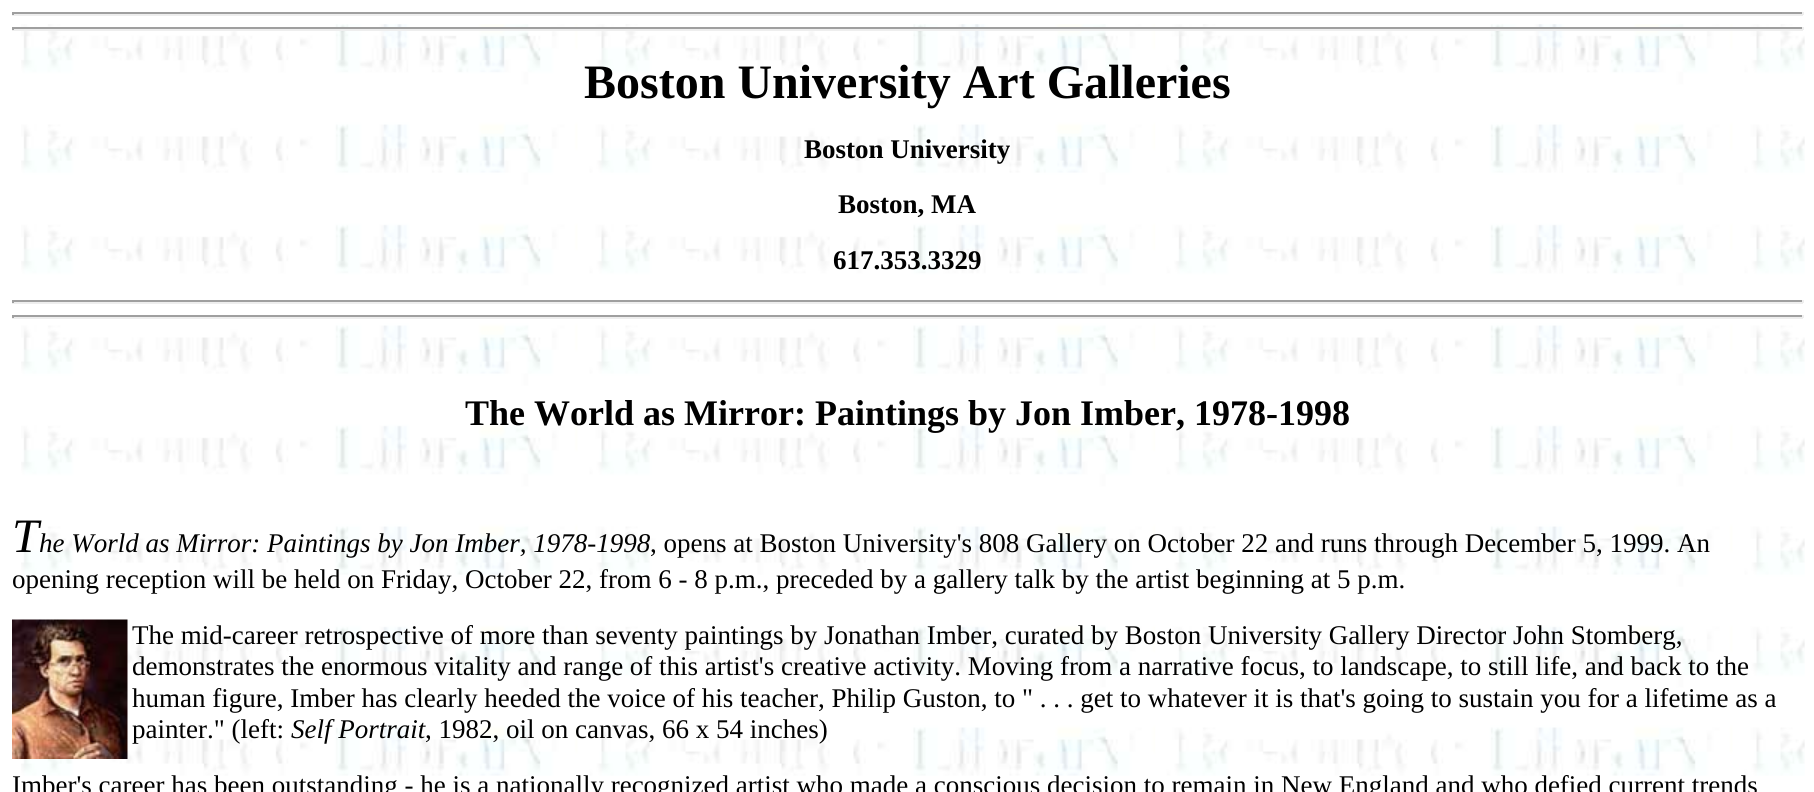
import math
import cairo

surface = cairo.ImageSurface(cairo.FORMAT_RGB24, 1814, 792)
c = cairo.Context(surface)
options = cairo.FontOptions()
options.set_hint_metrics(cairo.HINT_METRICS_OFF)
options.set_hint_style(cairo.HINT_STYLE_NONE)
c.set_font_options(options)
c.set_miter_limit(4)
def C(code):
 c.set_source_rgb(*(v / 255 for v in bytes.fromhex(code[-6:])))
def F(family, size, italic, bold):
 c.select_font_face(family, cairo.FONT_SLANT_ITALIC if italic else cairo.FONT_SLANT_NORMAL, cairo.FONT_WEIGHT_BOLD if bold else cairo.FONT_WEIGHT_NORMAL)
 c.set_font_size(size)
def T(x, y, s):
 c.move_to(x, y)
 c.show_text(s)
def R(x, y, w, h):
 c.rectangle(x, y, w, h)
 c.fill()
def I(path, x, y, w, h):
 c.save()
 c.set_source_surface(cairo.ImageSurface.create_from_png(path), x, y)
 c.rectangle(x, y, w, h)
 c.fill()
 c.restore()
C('ffffff')
c.paint()
I('1.png',21,24,1784,752)
C('9f9f9f')
R(12,12,1791,2)
C('eeeeee')
R(1802,12,2,3)
R(12,14,1791,2)
C('9f9f9f')
R(12,12,2,3)
R(12,27,1791,2)
C('eeeeee')
R(1802,27,2,3)
R(12,29,1791,2)
C('9f9f9f')
R(12,27,2,3)
F('Liberation Serif',48,0,1)
C('000000')
T(584,98,'Boston University Art Galleries')
F('Liberation Serif',27,0,1)
T(804,158,'Boston University')
T(838,213,'Boston, MA')
T(833,269,'617.353.3329')
C('9f9f9f')
R(12,300,1791,2)
C('eeeeee')
R(1802,300,2,3)
R(12,302,1791,2)
C('9f9f9f')
R(12,300,2,3)
R(12,315,1791,2)
C('eeeeee')
R(1802,315,2,3)
R(12,317,1791,2)
C('9f9f9f')
R(12,315,2,3)
F('Liberation Serif',36,0,1)
C('000000')
T(465,425,'The World as Mirror: Paintings by Jon Imber, 1978-1998')
F('Liberation Serif',48,1,0)
T(12,552,'T')
F('Liberation Serif',27,1,0)
T(39,552,'he World as Mirror: Paintings by Jon Imber, 1978-1998')
F('Liberation Serif',27,0,0)
T(650,552,', opens at Boston University\'s 808 Gallery on October 22 and runs through December 5, 1999. An')
T(12,588,'opening reception will be held on Friday, October 22, from 6 - 8 p.m., preceded by a gallery talk by the artist beginning at 5 p.m.')
I('2.png',12,619,116,140)
T(132,644,'The mid-career retrospective of more than seventy paintings by Jonathan Imber, curated by Boston University Gallery Director John Stomberg,')
T(132,675,'demonstrates the enormous vitality and range of this artist\'s creative activity. Moving from a narrative focus, to landscape, to still life, and back to the')
T(132,707,'human figure, Imber has clearly heeded the voice of his teacher, Philip Guston, to " . . . get to whatever it is that\'s going to sustain you for a lifetime as a')
T(132,738,'painter." (left:')
F('Liberation Serif',27,1,0)
T(291,738,'Self Portrait')
F('Liberation Serif',27,0,0)
T(425,738,', 1982, oil on canvas, 66 x 54 inches)')
T(12,794,'Imber\'s career has been outstanding - he is a nationally recognized artist who made a conscious decision to remain in New England and who defied current trends')
surface.write_to_png('o.png')
